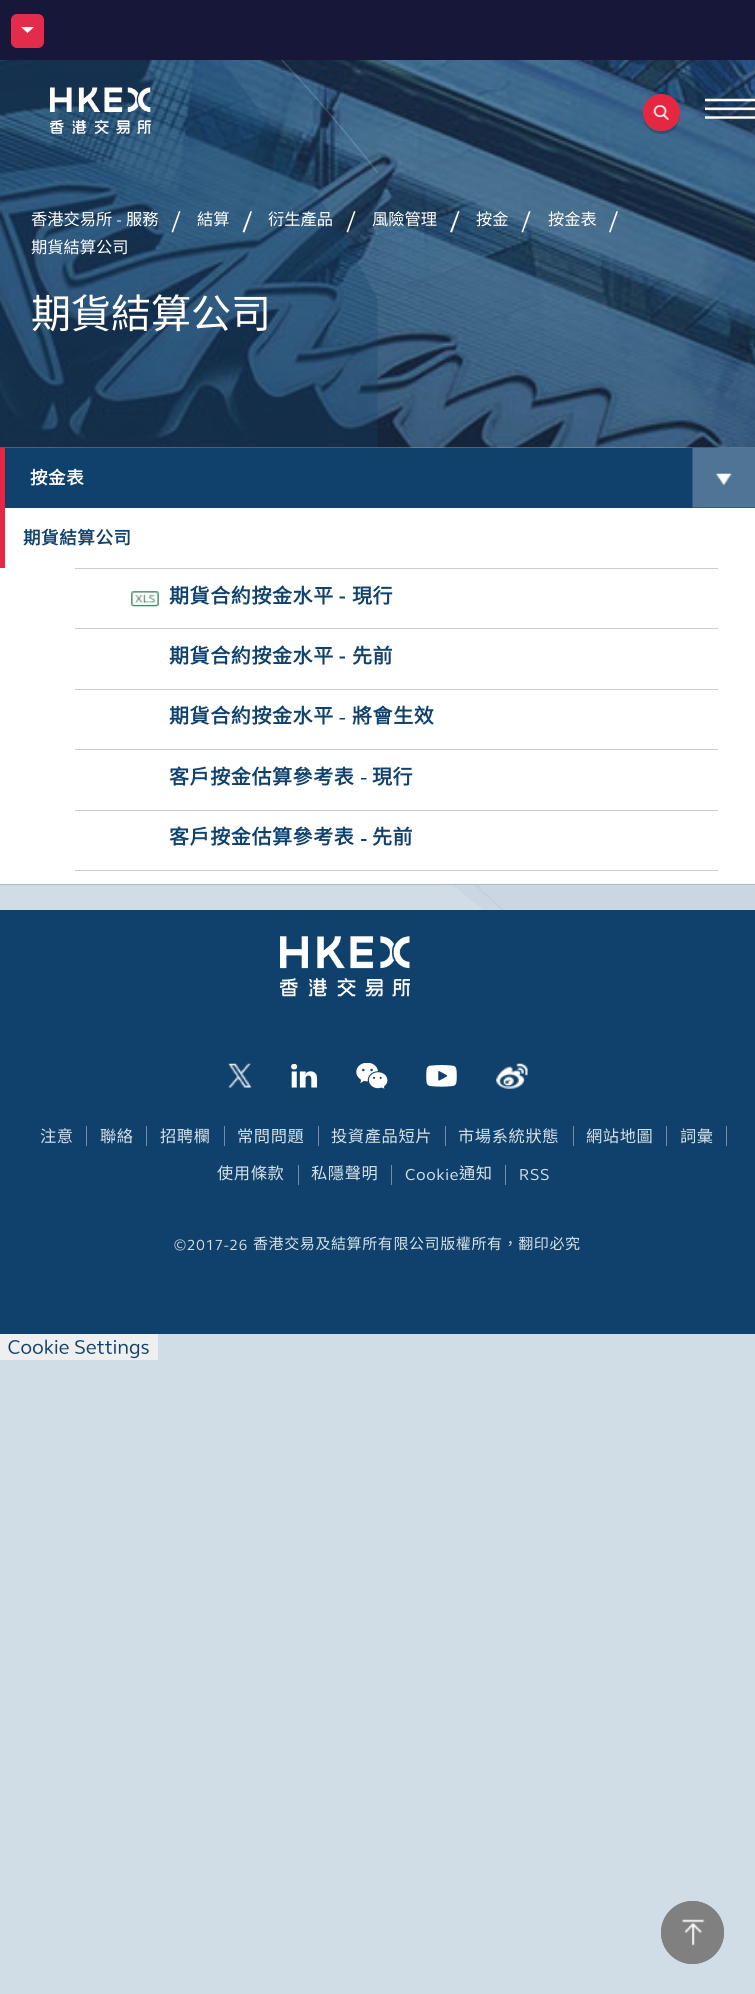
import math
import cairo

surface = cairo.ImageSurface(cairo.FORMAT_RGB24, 755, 1994)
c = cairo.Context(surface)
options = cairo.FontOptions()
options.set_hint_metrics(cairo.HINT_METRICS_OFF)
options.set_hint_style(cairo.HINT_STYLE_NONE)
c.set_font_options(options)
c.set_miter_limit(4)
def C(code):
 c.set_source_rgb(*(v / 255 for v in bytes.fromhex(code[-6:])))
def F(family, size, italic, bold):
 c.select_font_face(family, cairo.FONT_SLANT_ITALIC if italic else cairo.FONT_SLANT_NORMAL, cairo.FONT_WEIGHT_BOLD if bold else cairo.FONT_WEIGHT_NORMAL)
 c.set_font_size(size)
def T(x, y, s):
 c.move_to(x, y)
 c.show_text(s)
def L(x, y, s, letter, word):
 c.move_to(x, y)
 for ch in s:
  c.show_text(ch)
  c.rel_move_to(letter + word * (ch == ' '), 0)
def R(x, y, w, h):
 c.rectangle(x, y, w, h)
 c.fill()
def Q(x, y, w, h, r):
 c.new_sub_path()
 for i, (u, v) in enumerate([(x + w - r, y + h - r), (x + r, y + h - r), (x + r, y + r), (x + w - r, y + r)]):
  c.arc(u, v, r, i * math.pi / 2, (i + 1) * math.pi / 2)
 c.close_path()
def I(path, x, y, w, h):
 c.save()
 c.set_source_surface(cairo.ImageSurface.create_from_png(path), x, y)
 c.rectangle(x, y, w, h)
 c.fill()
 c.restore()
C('d1dde6')
c.paint()
C('171739')
R(0,0,755,60)
C('e32c4b')
Q(11,14,33,34,6)
c.fill()
C('ffffff')
c.new_path()
c.move_to(21,27)
c.line_to(34,27)
c.line_to(27.5,33)
c.close_path()
c.fill()
I('7.png',200,447,555,463)
C('10416c')
R(5,448,750,60)
I('8.png',692,447,63,61)
I('4.png',0,60,755,388)
c.set_source_rgba(0.2,0.2,0.2,0.35)
R(0,60,755,388)
I('5.png',0,60,378,388)
I('1.png',50,87,101,47)
c.set_source_rgba(0,0,0,0.2)
c.new_path()
c.move_to(680,113.5)
c.curve_to(679,135,648,137.5,643,117)
c.curve_to(643.5,120.5,644.5,124,646.5,126.5)
c.curve_to(658,141.5,681,132.5,680,113.5)
c.close_path()
c.fill()
C('e62742')
c.arc(661.5,112.5,18.5,0,2 * math.pi)
c.fill()
I('2.png',653,105,16,15)
I('3.png',705,98,50,21)
I('6.png',281,60,97,114)
F('Noto Sans CJK HK',16.25,0,0)
C('ffffff')
T(31,225,'香港交易所')
c.new_path()
c.move_to(117,221.5)
c.line_to(121,221.5)
c.line_to(121,220.5)
c.line_to(117,220.5)
c.close_path()
c.fill()
T(126,225,'服務')
c.new_path()
c.move_to(171.5,232)
c.line_to(173,232.5)
c.line_to(180.5,211.5)
c.line_to(179,211)
c.close_path()
c.fill()
T(197,225,'結算')
c.new_path()
c.move_to(242.5,232)
c.line_to(244.5,232.5)
c.line_to(252,211.5)
c.line_to(250.5,211)
c.close_path()
c.fill()
T(268,225,'衍生產品')
c.new_path()
c.move_to(346.5,232)
c.line_to(348,232.5)
c.line_to(355.5,211.5)
c.line_to(354,211)
c.close_path()
c.fill()
T(372,225,'風險管理')
c.new_path()
c.move_to(450,232)
c.line_to(452,232.5)
c.line_to(459.5,211.5)
c.line_to(458,211)
c.close_path()
c.fill()
T(476,225,'按金')
c.new_path()
c.move_to(521.5,232)
c.line_to(523,232.5)
c.line_to(530.5,211.5)
c.line_to(529,211)
c.close_path()
c.fill()
T(548,225,'按金表')
c.new_path()
c.move_to(609,232)
c.line_to(610.5,232.5)
c.line_to(618,211.5)
c.line_to(616.5,211)
c.close_path()
c.fill()
T(31,253,'期貨結算公司')
F('Noto Sans CJK HK',40,0,0)
T(31,328,'期貨結算公司')
F('Noto Sans CJK HK',17.5,0,1)
L(30,484,'按金表',.6,0)
R(5,508,750,60)
C('e72742')
R(0,448,5,120)
C('10416c')
L(23,544,'期貨結算公司',.6,0)
C('ffffff')
R(0,568,755,316)
C('aeb4c5')
R(0,884,755,1)
C('cccccc')
R(75,568,643,1)
I('9.png',131,591,28,16)
F('Noto Sans CJK HK',20,0,1)
C('10416c')
L(169,603,'期貨合約按金水平',.6,0)
C('13426b')
c.new_path()
c.move_to(339.5,598.5)
c.line_to(345,598.5)
c.line_to(345,596.5)
c.line_to(339.5,596.5)
c.close_path()
c.fill()
C('10416c')
L(352,603,'現行',.6,0)
C('cccccc')
R(75,628,643,1)
C('10416c')
L(169,663,'期貨合約按金水平',.6,0)
C('13426b')
c.new_path()
c.move_to(339.5,658.5)
c.line_to(345,658.5)
c.line_to(345,656.5)
c.line_to(339.5,656.5)
c.close_path()
c.fill()
C('10416c')
L(352,663,'先前',.6,0)
C('cccccc')
R(75,689,643,1)
C('10416c')
L(169,723,'期貨合約按金水平',.6,0)
C('13426b')
c.new_path()
c.move_to(339.5,719.5)
c.line_to(345,719.5)
c.line_to(345,718)
c.line_to(339.5,718)
c.close_path()
c.fill()
C('10416c')
L(352,723,'將會生效',.6,0)
C('cccccc')
R(75,749,643,1)
C('10416c')
L(169,784,'客戶按金估算參考表',.6,0)
L(372,784,'現行',.6,0)
C('13426b')
c.new_path()
c.move_to(361,779.5)
c.line_to(366.5,779.5)
c.line_to(366.5,778)
c.line_to(361,778)
c.close_path()
c.fill()
C('cccccc')
R(75,810,643,1)
R(75,870,643,1)
C('10416c')
L(169,844,'客戶按金估算參考表',.6,0)
L(372,844,'先前',.6,0)
C('13426b')
c.new_path()
c.move_to(361,841)
c.line_to(366.5,841)
c.line_to(366.5,839)
c.line_to(361,839)
c.close_path()
c.fill()
C('10416c')
R(0,910,755,424)
I('10.png',280,936,130,61)
I('11.png',228,1063,24,25)
I('12.png',291,1064,27,24)
I('13.png',356,1063,32,26)
I('14.png',426,1065,31,22)
I('15.png',496,1063,32,26)
F('Noto Sans CJK HK',16.25,0,0)
C('d5e2e8')
L(40,1142,'注意',.6,0)
C('708da7')
R(86,1126,1,20)
C('d5e2e8')
L(100,1142,'聯絡',.6,0)
C('708da7')
R(146,1126,1,20)
C('d5e2e8')
L(160,1142,'招聘欄',.6,0)
C('708da7')
R(224,1126,1,20)
C('d5e2e8')
L(237,1142,'常問問題',.6,0)
C('708da7')
R(318,1126,1,20)
C('d5e2e8')
L(331,1142,'投資產品短片',.6,0)
C('708da7')
R(445,1126,1,20)
C('d5e2e8')
L(458,1142,'市場系統狀態',.6,0)
C('708da7')
R(573,1126,1,20)
C('d5e2e8')
L(586,1142,'網站地圖',.6,0)
C('708da7')
R(666,1126,1,20)
C('d5e2e8')
L(680,1142,'詞彙',.6,0)
C('708da7')
R(726,1126,1,20)
C('d5e2e8')
L(217,1179,'使用條款',.6,0)
C('708da7')
R(298,1165,1,20)
C('d5e2e8')
L(311,1179,'私隱聲明',.6,0)
C('708da7')
R(391,1165,1,20)
I('16.png',405,1168,53,13)
C('d5e2e8')
L(459,1179,'通知',.6,0)
C('708da7')
R(505,1165,1,20)
I('17.png',520,1168,29,13)
I('18.png',174,1239,73,12)
F('Noto Sans CJK HK',15,0,0)
C('d5e2e8')
L(253,1249,'香港交易及結算所有限公司版權所有，翻印必究',.6,0)
C('efefef')
R(0,1334,158,26)
I('19.png',8,1339,141,20)
C('808080')
c.arc(692.5,1932.5,31.5,0,2 * math.pi)
c.fill()
I('20.png',682,1919,23,27)
c.arc(692.5,1932.5,31,0,2 * math.pi)
c.set_line_width(1)
c.stroke()
surface.write_to_png('o.png')
